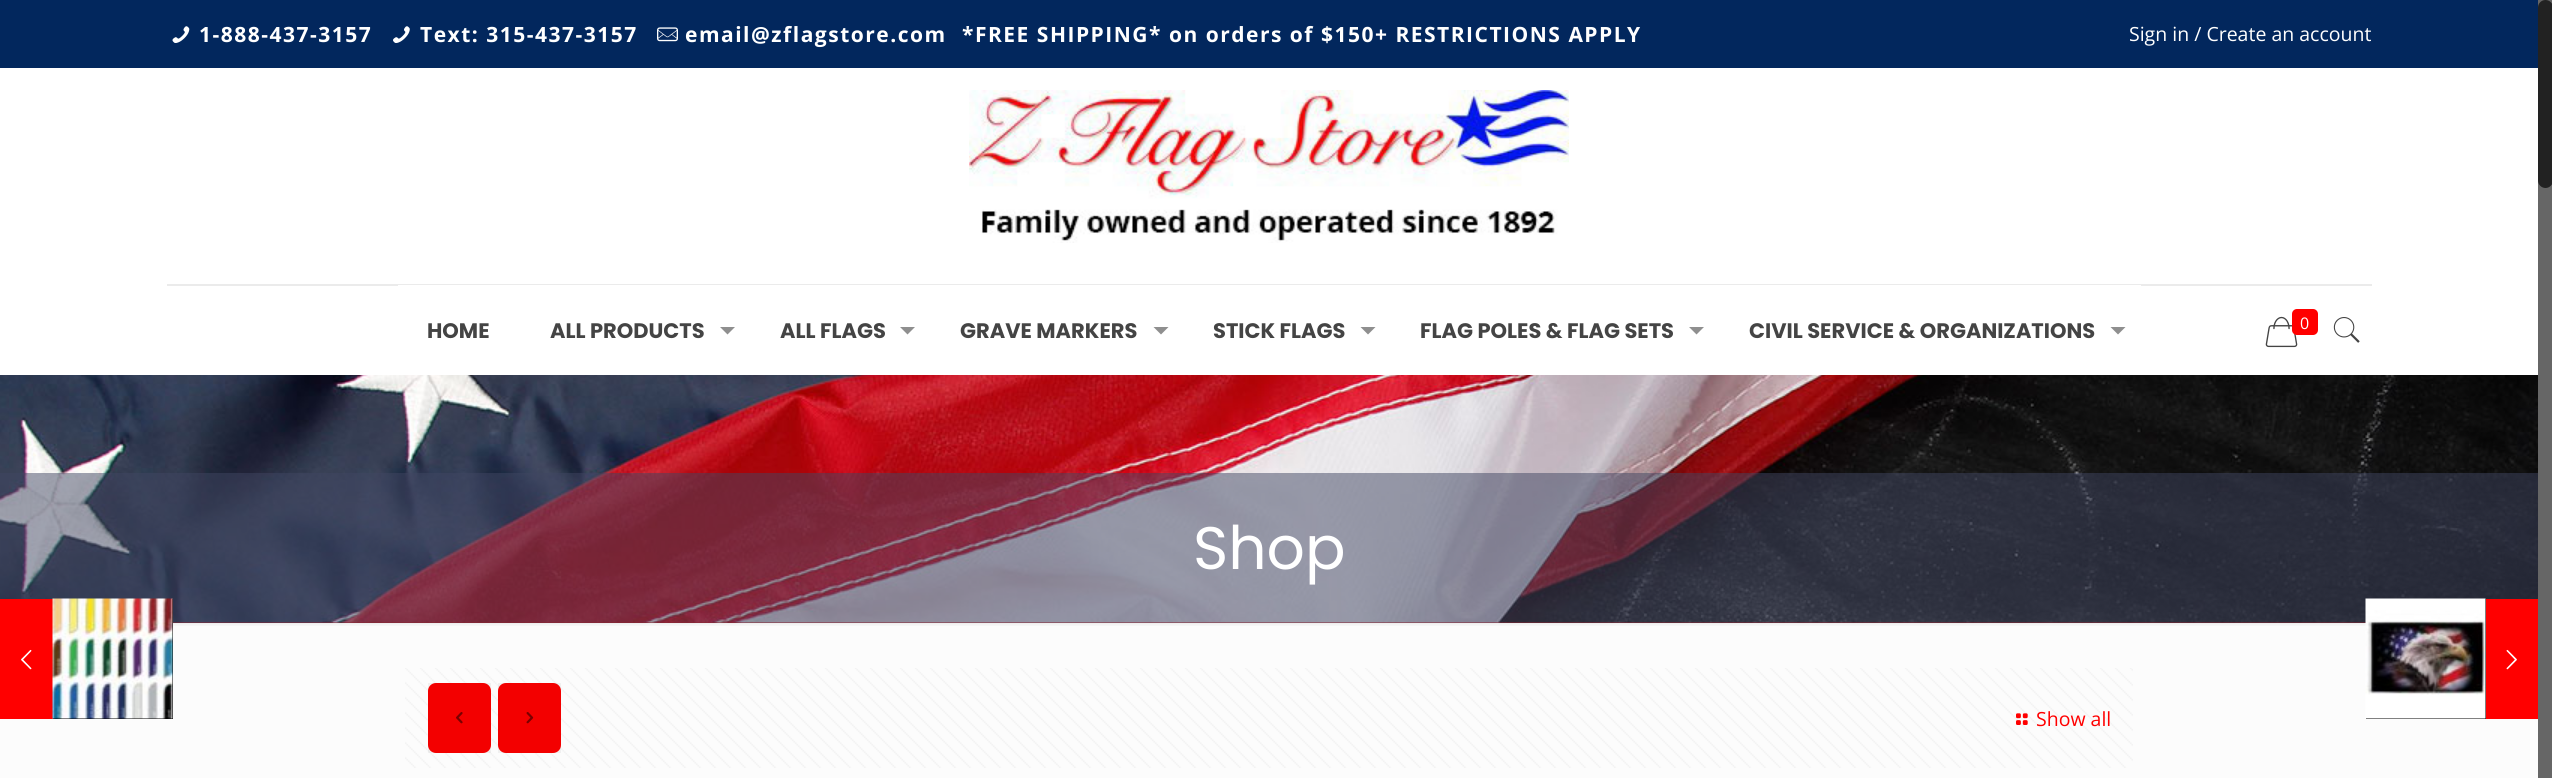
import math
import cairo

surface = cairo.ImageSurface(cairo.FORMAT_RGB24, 2552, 778)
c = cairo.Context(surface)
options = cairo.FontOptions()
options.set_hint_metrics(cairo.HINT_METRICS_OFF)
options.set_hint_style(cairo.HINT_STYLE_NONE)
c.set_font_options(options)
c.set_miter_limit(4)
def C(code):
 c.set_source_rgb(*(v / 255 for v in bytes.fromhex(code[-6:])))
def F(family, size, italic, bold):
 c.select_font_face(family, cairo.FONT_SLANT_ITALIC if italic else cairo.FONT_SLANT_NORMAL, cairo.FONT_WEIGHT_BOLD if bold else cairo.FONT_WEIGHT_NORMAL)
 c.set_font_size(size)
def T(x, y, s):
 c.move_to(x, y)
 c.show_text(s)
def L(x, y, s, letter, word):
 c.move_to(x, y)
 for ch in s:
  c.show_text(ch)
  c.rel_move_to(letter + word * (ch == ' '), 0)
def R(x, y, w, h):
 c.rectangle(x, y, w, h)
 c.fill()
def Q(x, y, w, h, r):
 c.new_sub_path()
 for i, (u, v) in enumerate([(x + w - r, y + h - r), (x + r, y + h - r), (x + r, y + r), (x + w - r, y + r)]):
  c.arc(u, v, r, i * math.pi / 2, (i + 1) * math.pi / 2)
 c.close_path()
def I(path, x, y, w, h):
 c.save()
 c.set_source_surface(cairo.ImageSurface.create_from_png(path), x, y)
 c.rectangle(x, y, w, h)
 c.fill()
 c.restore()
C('fcfcfc')
c.paint()
C('e10b0b')
R(173,622,2193,1)
I('3.png',0,375,2538,248)
c.set_source_rgba(0.251,0.278,0.388,0.5)
R(0,473,2538,150)
C('ff0000')
R(0,599,53,120)
I('1.png',21,649,11,21)
C('000000')
R(53,599,120,120)
I('2.png',52,598,121,121)
C('02275d')
R(0,0,2538,68)
I('4.png',172,26,18,17)
F('Open Sans',21,0,1)
C('ffffff')
L(199,42,'1-888-437-3157',1.5,0)
I('5.png',393,26,17,17)
L(420,42,'Text: 315-437-3157',1.5,0)
I('6.png',657,27,21,15)
L(685,42,'email@zflagstore.com',1.5,0)
L(962,42,'*FREE SHIPPING* on orders of $150+ RESTRICTIONS APPLY',1.5,0)
F('Open Sans',19.5,0,0)
T(2129,41,'Sign in / Create an account')
R(0,68,2538,307)
C('ebebeb')
R(167,284,2205,2)
I('7.png',969,90,600,153)
C('ffffff')
R(398,285,1743,1)
F('Poppins',21,0,1)
C('444444')
T(427,338,'HOME')
T(550,338,'ALL PRODUCTS')
C('8f8f8f')
c.new_path()
c.move_to(720,327)
c.line_to(735,327)
c.line_to(727.5,334.5)
c.close_path()
c.fill()
C('444444')
T(780,338,'ALL FLAGS')
C('8f8f8f')
c.new_path()
c.move_to(900,327)
c.line_to(915,327)
c.line_to(907.5,334.5)
c.close_path()
c.fill()
C('444444')
T(960,338,'GRAVE MARKERS')
C('8f8f8f')
c.new_path()
c.move_to(1153.5,327)
c.line_to(1168.5,327)
c.line_to(1161,334.5)
c.close_path()
c.fill()
C('444444')
T(1213,338,'STICK FLAGS')
C('8f8f8f')
c.new_path()
c.move_to(1360.5,327)
c.line_to(1375.5,327)
c.line_to(1368,334.5)
c.close_path()
c.fill()
C('444444')
T(1420,338,'FLAG POLES & FLAG SETS')
C('8f8f8f')
c.new_path()
c.move_to(1689,327)
c.line_to(1704,327)
c.line_to(1696.5,334.5)
c.close_path()
c.fill()
C('444444')
T(1749,338,'CIVIL SERVICE & ORGANIZATIONS')
C('8f8f8f')
c.new_path()
c.move_to(2110.5,327)
c.line_to(2125.5,327)
c.line_to(2118,334.5)
c.close_path()
c.fill()
I('8.png',2265,316,33,32)
C('ff0000')
Q(2292,309,26,26,5)
c.fill()
F('Open Sans',16,0,0)
C('ffffff')
T(2300,329,'0')
I('9.png',2333,317,27,26)
F('Poppins',60,0,0)
T(1193,569,'Shop')
I('10.png',173,622,2193,4)
I('11.png',405,668,1728,100)
C('ff0000')
Q(428,683,63,70,8)
c.fill()
c.set_source_rgba(0,0,0,0.05)
R(428,683,63,70)
I('12.png',456,712,7,12)
C('ff0000')
Q(498,683,63,70,8)
c.fill()
c.set_source_rgba(0,0,0,0.05)
R(498,683,63,70)
I('13.png',526,712,8,12)
I('14.png',2016,713,12,12)
F('Open Sans',19.5,0,0)
C('ff0000')
T(2036,726,'Show all')
C('000000')
R(2366,599,120,120)
I('15.png',2365,598,121,121)
C('ff0000')
R(2486,599,52,120)
I('16.png',2506,649,11,21)
C('666666')
R(2538,0,14,778)
C('222222')
Q(2538,0,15,188,7.5)
c.fill()
surface.write_to_png('o.png')
